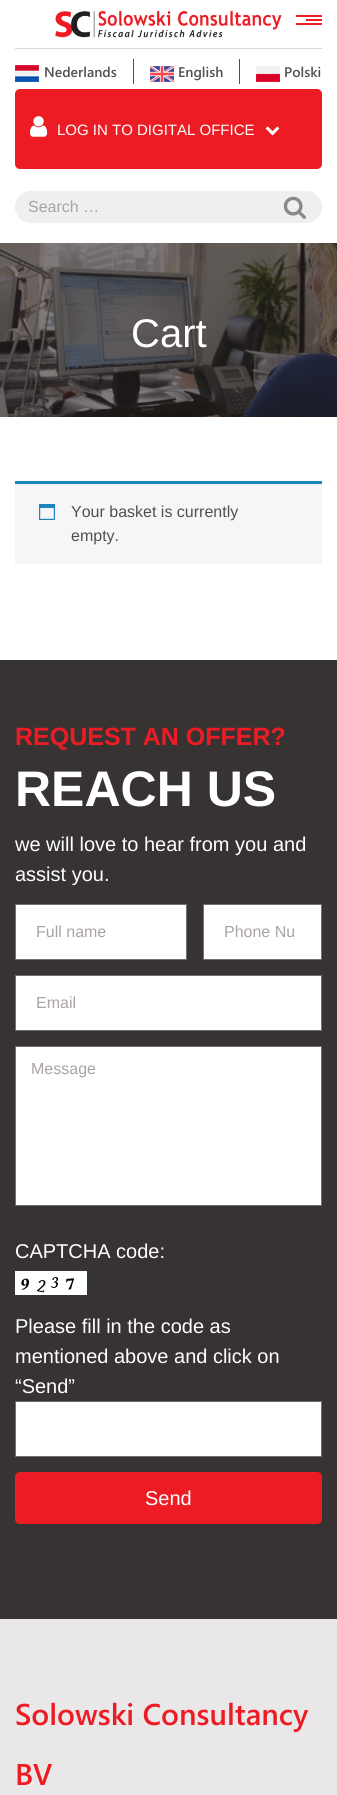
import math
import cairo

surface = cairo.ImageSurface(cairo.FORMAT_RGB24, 337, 1795)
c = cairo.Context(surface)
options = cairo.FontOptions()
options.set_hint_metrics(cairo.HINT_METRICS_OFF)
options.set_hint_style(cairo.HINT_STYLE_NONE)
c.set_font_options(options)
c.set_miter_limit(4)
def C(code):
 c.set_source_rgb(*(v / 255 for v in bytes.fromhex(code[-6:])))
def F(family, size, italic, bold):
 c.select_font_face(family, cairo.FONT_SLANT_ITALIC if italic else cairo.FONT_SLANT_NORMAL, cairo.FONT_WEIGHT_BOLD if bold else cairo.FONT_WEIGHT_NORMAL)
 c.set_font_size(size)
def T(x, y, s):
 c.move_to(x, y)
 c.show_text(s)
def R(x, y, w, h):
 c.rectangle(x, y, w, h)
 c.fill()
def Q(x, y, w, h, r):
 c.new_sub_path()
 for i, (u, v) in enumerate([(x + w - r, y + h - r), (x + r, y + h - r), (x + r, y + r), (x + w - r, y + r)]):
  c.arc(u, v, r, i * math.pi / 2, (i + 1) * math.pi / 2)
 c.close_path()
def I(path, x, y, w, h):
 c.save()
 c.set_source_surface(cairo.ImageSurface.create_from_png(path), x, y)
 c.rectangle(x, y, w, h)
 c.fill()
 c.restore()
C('ffffff')
c.paint()
I('1.png',55,10,227,28)
C('ec2227')
R(296,15,26,2)
R(306,19,16,2)
R(296,23,26,2)
C('d8d7da')
R(15,48,307,1)
I('2.png',15,65,24,17)
F('Segoe UI SemiBold',14,0,0)
C('544f4f')
T(44,77,'Nederlands')
R(133,59,1,25)
I('3.png',150,66,24,16)
T(178,77,'English')
R(239,59,1,25)
I('4.png',256,66,24,16)
T(284,77,'Polski')
C('ed1c24')
Q(15,89,307,80,5)
c.fill()
I('5.png',30,116,18,21)
F('Liberation Sans',15,0,0)
C('ffffff')
T(57,135,'LOG IN TO DIGITAL OFFICE')
I('6.png',265,126,15,10)
C('efefef')
Q(15.5,191.5,306,31,15.5)
c.fill_preserve()
c.set_line_width(1)
c.stroke()
F('Liberation Sans',16,0,0)
C('aaa3a3')
T(28,212,'Search …')
I('7.png',283,196,23,23)
I('8.png',0,243,337,174)
F('Liberation Sans',40,0,0)
C('ffffff')
T(131,347,'Cart')
C('f6f5f8')
R(15,484,307,80)
C('1e85be')
R(15,481,307,3)
I('9.png',39,504,16,16)
F('Liberation Sans',16,0,0)
C('544f4f')
T(71,517,'Your basket is currently')
T(71,541,'empty.')
C('373332')
R(0,660,337,959)
F('Liberation Sans',25,0,1)
C('ed1c24')
T(15,745,'REQUEST AN OFFER?')
F('Liberation Sans',50,0,1)
C('ffffff')
T(15,806,'REACH US')
F('Liberation Sans',20,0,0)
T(15,851,'we will love to hear from you and')
T(15,881,'assist you.')
c.rectangle(15.5,904.5,171,55)
c.fill_preserve()
C('707070')
c.stroke()
F('Liberation Sans',16,0,0)
C('aaa3a3')
T(36,937,'Full name')
C('ffffff')
c.rectangle(203.5,904.5,118,55)
c.fill_preserve()
C('707070')
c.stroke()
C('aaa3a3')
T(224,937,'Phone Nu')
C('ffffff')
c.rectangle(15.5,975.5,306,55)
c.fill_preserve()
C('707070')
c.stroke()
C('aaa3a3')
T(36,1008,'Email')
C('ffffff')
c.rectangle(15.5,1046.5,306,159)
c.fill_preserve()
C('707070')
c.stroke()
C('aaa3a3')
T(31,1074,'Message')
F('Liberation Sans',20,0,0)
C('ffffff')
T(15,1258,'CAPTCHA code:')
I('10.png',15,1271,72,24)
T(15,1333,'Please fill in the code as')
T(15,1363,'mentioned above and click on')
T(15,1393,'“Send”')
c.rectangle(15.5,1401.5,306,55)
c.fill_preserve()
C('707070')
c.stroke()
C('ed1c24')
Q(15,1472,307,52,5)
c.fill()
C('ffffff')
T(145,1505,'Send')
C('e9e7e8')
R(0,1619,337,176)
F('Segoe UI SemiBold',30,0,0)
C('ed1c24')
T(15,1725,'Solowski Consultancy')
T(15,1785,'BV')
surface.write_to_png('o.png')
